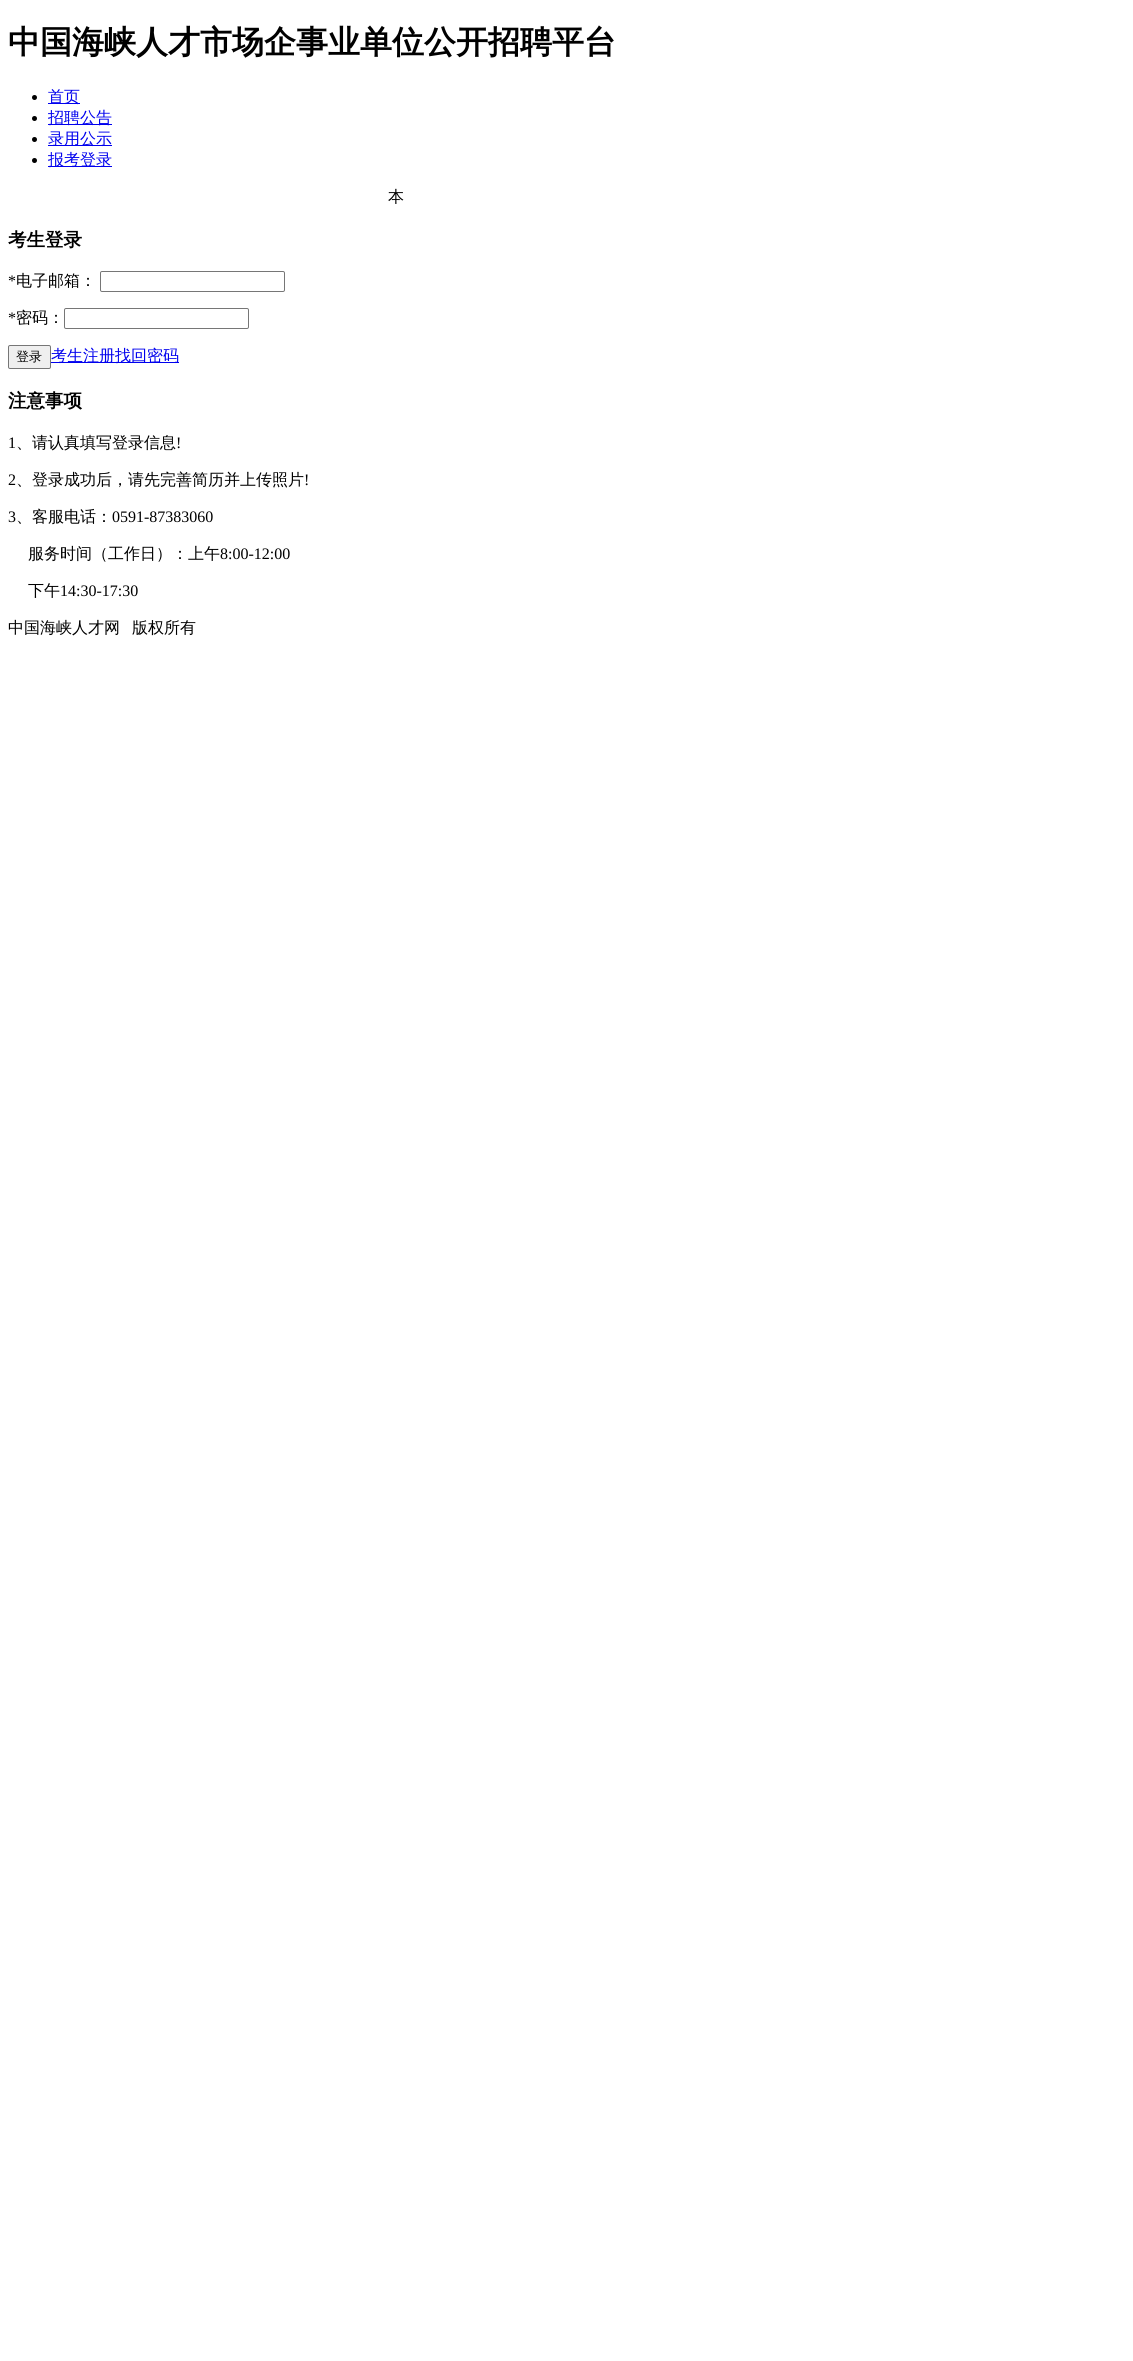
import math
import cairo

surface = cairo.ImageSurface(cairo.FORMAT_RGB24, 1133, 2361)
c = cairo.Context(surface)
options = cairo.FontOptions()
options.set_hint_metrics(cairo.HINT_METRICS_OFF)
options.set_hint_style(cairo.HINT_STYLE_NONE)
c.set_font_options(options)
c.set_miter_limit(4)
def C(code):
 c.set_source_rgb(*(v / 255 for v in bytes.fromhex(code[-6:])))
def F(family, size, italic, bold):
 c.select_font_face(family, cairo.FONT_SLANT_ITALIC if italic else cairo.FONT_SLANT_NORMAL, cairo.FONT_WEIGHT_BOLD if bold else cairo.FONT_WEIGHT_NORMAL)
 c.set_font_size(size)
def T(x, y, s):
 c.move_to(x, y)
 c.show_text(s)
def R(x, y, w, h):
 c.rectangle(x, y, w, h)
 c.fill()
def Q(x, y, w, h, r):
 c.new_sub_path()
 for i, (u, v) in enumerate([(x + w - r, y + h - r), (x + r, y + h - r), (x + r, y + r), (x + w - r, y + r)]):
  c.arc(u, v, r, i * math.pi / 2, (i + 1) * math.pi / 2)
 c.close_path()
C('ffffff')
c.paint()
F('WenQuanYi Zen Hei',32,0,1)
C('000000')
T(8,53,'中国海峡人才市场企事业单位公开招聘平台')
c.new_path()
c.arc(34.5,97.5,2.5,0,2 * math.pi)
c.fill()
C('0000ee')
R(48,103,32,1)
F('WenQuanYi Zen Hei Medium',16,0,0)
T(48,102,'首页')
C('000000')
c.new_path()
c.arc(34.5,118.5,2.5,0,2 * math.pi)
c.fill()
C('0000ee')
R(48,124,64,1)
T(48,123,'招聘公告')
C('000000')
c.new_path()
c.arc(34.5,139.5,2.5,0,2 * math.pi)
c.fill()
C('0000ee')
R(48,145,64,1)
T(48,144,'录用公示')
C('000000')
c.new_path()
c.arc(34.5,160.5,2.5,0,2 * math.pi)
c.fill()
C('0000ee')
R(48,166,64,1)
T(48,165,'报考登录')
C('000000')
T(388,202,'本')
F('WenQuanYi Zen Hei',18.5,0,1)
T(8,246,'考生登录')
F('Liberation Serif',16,0,0)
T(8,286,'*')
F('WenQuanYi Zen Hei Medium',16,0,0)
T(16,286,'电子邮箱：')
Q(100.5,271.5,184,20,1.5)
C('767676')
c.set_line_width(1)
c.stroke()
F('Liberation Serif',16,0,0)
C('000000')
T(8,323,'*')
F('WenQuanYi Zen Hei Medium',16,0,0)
T(16,323,'密码：')
Q(64.5,308.5,184,20,1.5)
C('767676')
c.stroke()
C('efefef')
Q(8.5,345.5,42,23,1.5)
c.fill_preserve()
C('767676')
c.stroke()
F('WenQuanYi Zen Hei Medium',13,0,0)
C('000000')
T(16,361,'登录')
C('0000ee')
R(51,362,128,1)
F('WenQuanYi Zen Hei Medium',16,0,0)
T(51,361,'考生注册找回密码')
F('WenQuanYi Zen Hei',18.5,0,1)
C('000000')
T(8,407,'注意事项')
F('Liberation Serif',16,0,0)
T(8,448,'1')
F('WenQuanYi Zen Hei Medium',16,0,0)
T(16,448,'、请认真填写登录信息')
F('Liberation Serif',16,0,0)
T(176,448,'!')
T(8,485,'2')
F('WenQuanYi Zen Hei Medium',16,0,0)
T(16,485,'、登录成功后，请先完善简历并上传照片')
F('Liberation Serif',16,0,0)
T(304,485,'!')
T(8,522,'3')
F('WenQuanYi Zen Hei Medium',16,0,0)
T(16,522,'、客服电话：')
F('Liberation Serif',16,0,0)
T(112,522,'0591-87383060')
F('WenQuanYi Zen Hei Medium',16,0,0)
T(28,559,'服务时间（工作日）：上午')
F('Liberation Serif',16,0,0)
T(220,559,'8:00-12:00')
F('WenQuanYi Zen Hei Medium',16,0,0)
T(28,596,'下午')
F('Liberation Serif',16,0,0)
T(60,596,'14:30-17:30')
F('WenQuanYi Zen Hei Medium',16,0,0)
T(8,633,'中国海峡人才网')
T(132,633,'版权所有')
surface.write_to_png('o.png')
